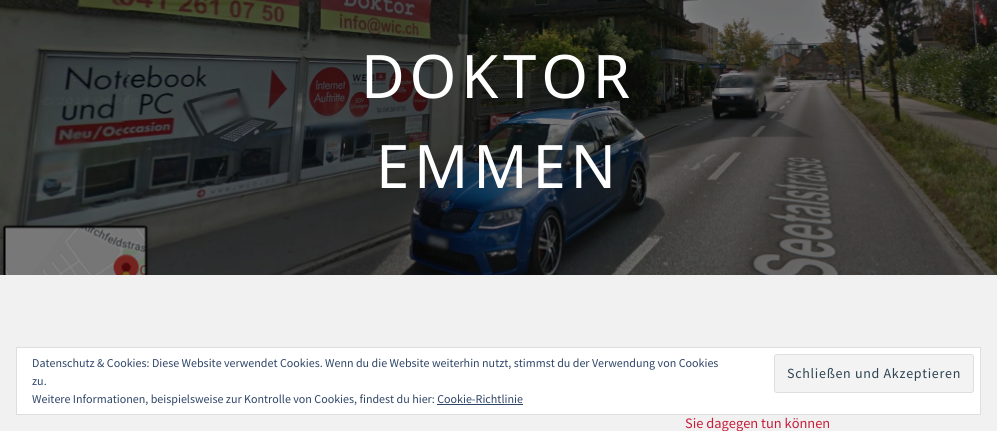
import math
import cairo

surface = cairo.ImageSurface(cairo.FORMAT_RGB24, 997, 431)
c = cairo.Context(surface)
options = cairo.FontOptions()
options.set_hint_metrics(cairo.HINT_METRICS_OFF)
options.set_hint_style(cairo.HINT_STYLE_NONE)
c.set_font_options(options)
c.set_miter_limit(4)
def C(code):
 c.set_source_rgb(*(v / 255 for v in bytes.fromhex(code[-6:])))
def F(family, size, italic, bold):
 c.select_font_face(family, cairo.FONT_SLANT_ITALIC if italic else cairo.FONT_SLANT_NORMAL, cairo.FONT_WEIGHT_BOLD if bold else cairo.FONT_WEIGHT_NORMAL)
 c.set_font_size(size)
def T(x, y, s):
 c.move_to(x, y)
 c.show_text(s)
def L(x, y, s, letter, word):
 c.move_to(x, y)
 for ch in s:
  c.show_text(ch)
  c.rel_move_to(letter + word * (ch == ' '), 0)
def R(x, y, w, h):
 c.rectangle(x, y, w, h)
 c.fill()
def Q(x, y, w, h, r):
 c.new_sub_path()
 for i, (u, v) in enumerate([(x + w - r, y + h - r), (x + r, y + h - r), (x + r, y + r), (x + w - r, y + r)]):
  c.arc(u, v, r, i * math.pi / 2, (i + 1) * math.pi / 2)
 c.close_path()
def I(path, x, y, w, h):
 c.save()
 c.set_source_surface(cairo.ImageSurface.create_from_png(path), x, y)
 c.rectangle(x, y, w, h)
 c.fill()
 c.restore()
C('f1f1f1')
c.paint()
I('1.png',0,0,997,275)
F('Noto Sans',60,0,0)
C('ffffff')
L(361,98,'DOKTOR',4.75,0)
L(376,188,'EMMEN',4.75,0)
F('Source Sans Pro',14.4,0,0)
C('c61e3a')
T(685,428,'Sie dagegen tun können')
C('ffffff')
c.rectangle(16.5,347.5,964,67)
c.fill_preserve()
C('dedede')
c.set_line_width(1)
c.stroke()
F('Source Sans Pro',12,0,0)
C('2e4467')
T(32,367,'Datenschutz & Cookies: Diese Website verwendet Cookies. Wenn du die Website weiterhin nutzt, stimmst du der Verwendung von Cookies')
C('f3f3f3')
Q(774.5,354.5,199,38,2.5)
c.fill_preserve()
C('dedede')
c.stroke()
F('Source Sans Pro',14,0,0)
C('2e4453')
L(787,378,'Schließen und Akzeptieren',.7,0)
F('Source Sans Pro',12,0,0)
C('2e4467')
T(32,385,'zu.')
T(32,403,'Weitere Informationen, beispielsweise zur Kontrolle von Cookies, findest du hier: Cookie-Richtlinie')
R(437,404,86,1)
surface.write_to_png('o.png')
